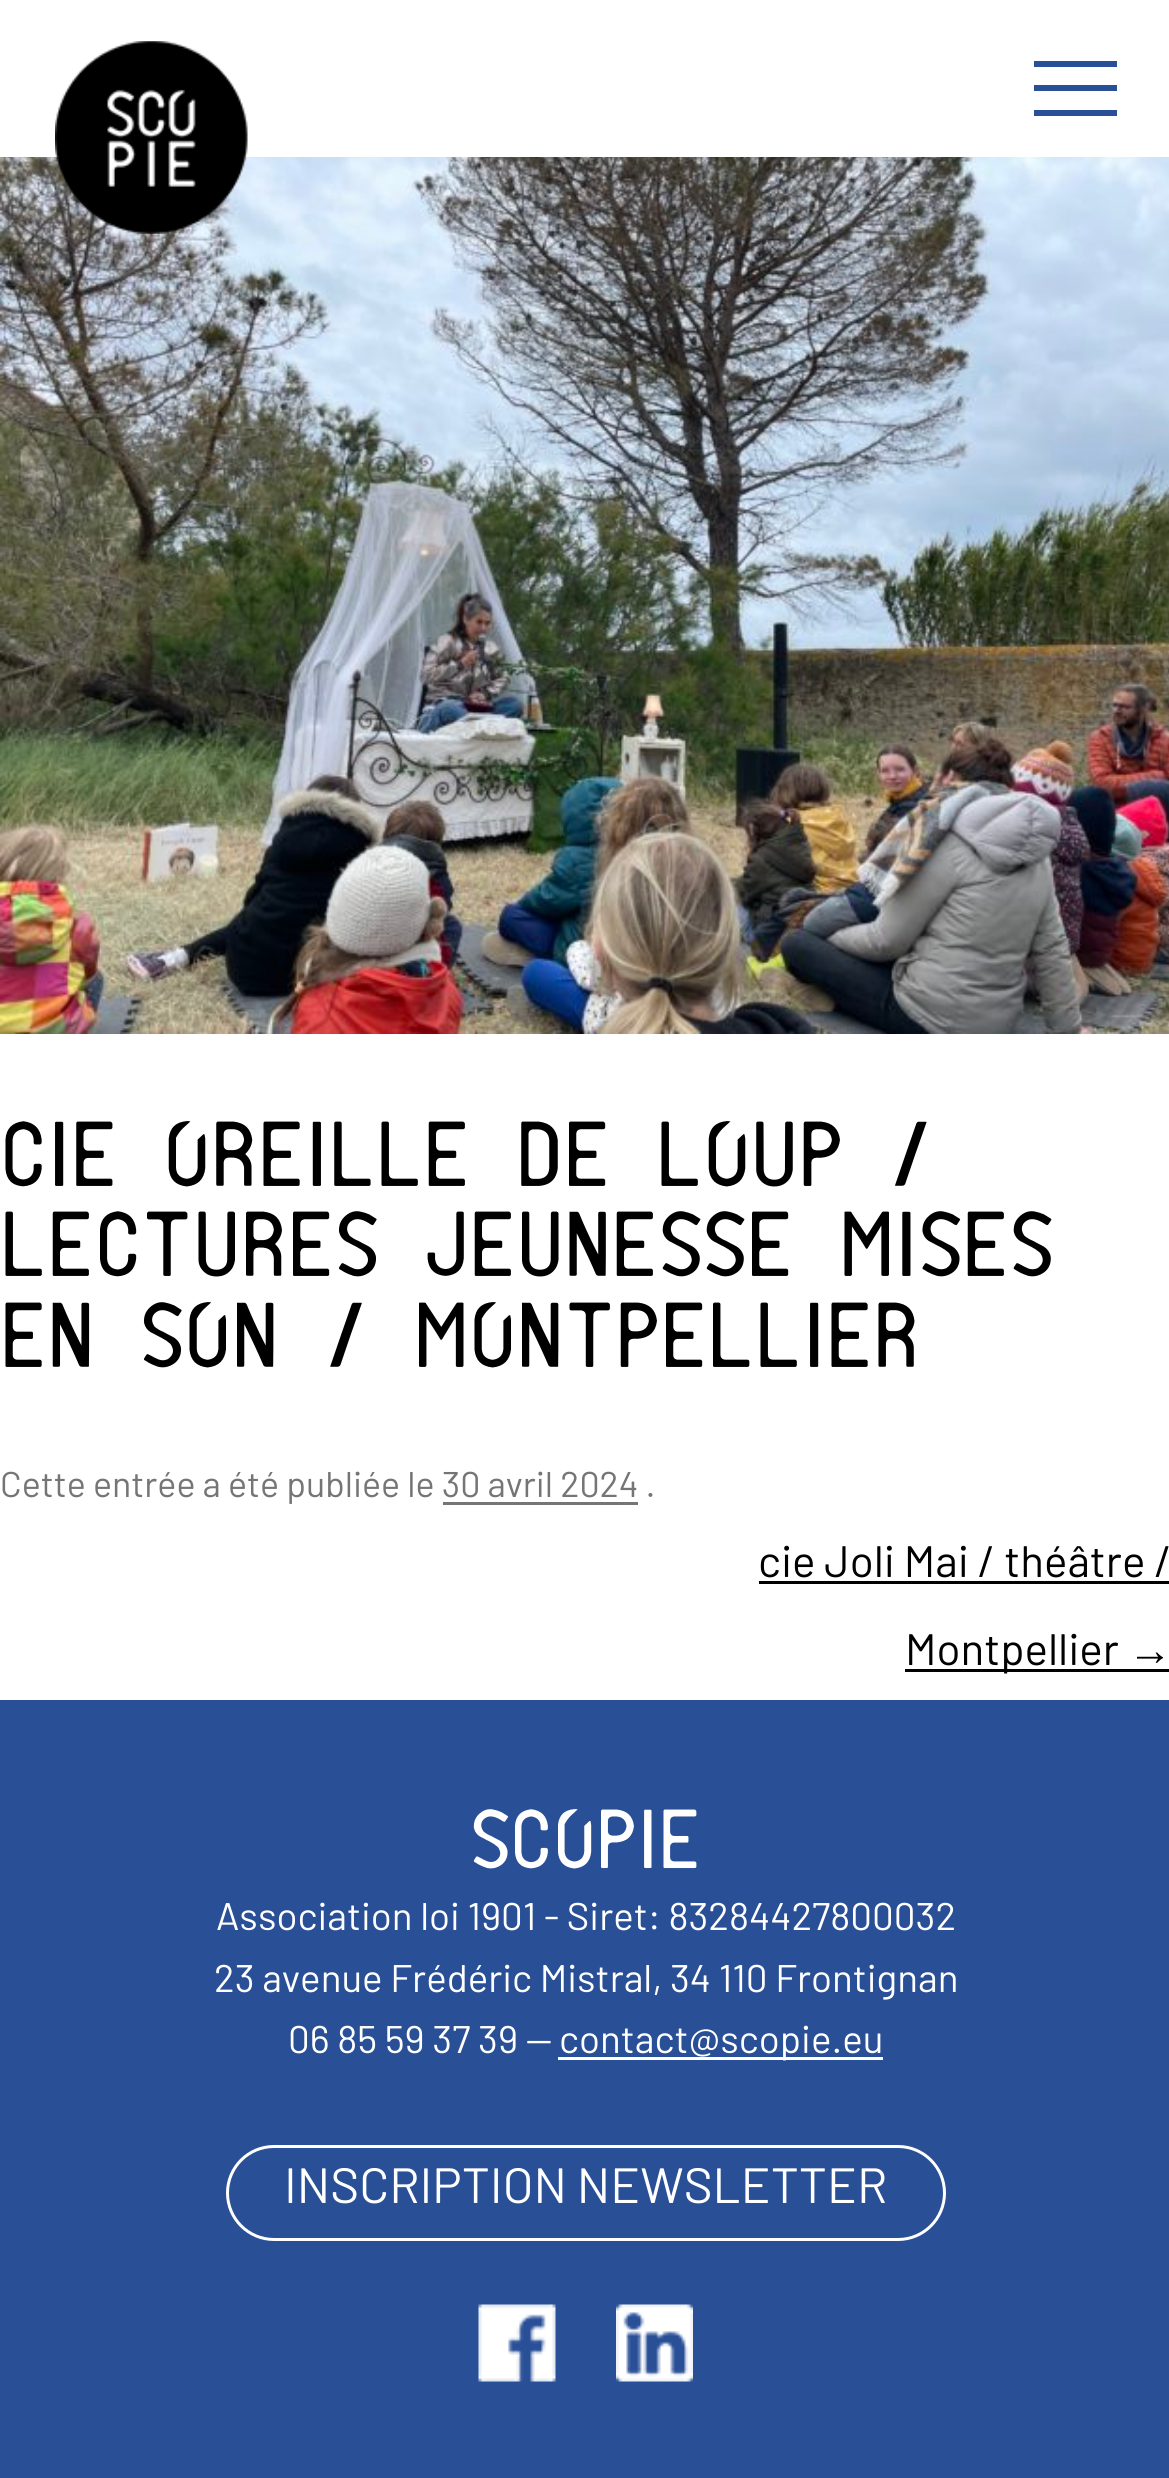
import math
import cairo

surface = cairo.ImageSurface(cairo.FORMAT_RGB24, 1169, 2478)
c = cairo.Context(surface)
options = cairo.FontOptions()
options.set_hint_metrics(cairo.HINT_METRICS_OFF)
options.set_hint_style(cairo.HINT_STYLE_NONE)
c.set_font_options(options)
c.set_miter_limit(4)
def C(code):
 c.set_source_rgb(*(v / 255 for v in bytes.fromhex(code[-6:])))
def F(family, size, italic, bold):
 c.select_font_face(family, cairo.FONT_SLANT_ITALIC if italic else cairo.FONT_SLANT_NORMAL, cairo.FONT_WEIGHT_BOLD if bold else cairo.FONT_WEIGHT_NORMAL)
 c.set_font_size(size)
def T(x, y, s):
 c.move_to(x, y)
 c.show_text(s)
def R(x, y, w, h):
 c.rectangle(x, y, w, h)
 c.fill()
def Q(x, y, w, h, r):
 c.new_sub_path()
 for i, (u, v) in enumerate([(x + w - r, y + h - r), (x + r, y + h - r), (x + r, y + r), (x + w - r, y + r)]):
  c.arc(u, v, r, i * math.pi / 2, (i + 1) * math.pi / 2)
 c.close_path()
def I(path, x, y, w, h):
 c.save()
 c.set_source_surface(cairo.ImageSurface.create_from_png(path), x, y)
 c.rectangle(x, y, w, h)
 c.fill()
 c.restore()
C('ffffff')
c.paint()
I('2.png',0,157,1169,877)
I('1.png',55,41,193,193)
C('294f97')
R(1034,61,83,6)
R(1034,85,83,6)
R(1034,110,83,6)
F('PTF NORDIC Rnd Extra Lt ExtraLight',90.75,0,0)
C('000000')
T(0,1187,'cie Oreille de Loup /')
T(0,1277,'lectures jeunesse mises')
T(0,1368,'en son / Montpellier')
F('Barlow',35.75,0,0)
C('757575')
T(0,1497,'Cette entrée a été publiée le 30 avril 2024 .')
R(443,1502,195,3)
F('Barlow',44,0,0)
C('000000')
T(758,1577,'cie Joli Mai / théâtre /')
R(759,1581,410,3)
R(905,1669,264,3)
T(905,1665,'Montpellier')
F('Liberation Sans',44,0,0)
T(1128,1665,'→')
C('294f97')
R(0,1700,1169,778)
F('PTF NORDIC Rnd Extra Lt ExtraLight',82.5,0,0)
C('ffffff')
T(470,1869,'Scopie')
F('Barlow',38.5,0,0)
T(216,1930,'Association loi 1901 - Siret: 83284427800032')
T(214,1992,'23 avenue Frédéric Mistral, 34 110 Frontignan')
T(288,2053,'06 85 59 37 39 —')
R(558,2057,325,3)
T(559,2053,'contact@scopie.eu')
Q(227.5,2146.5,717,93,46.5)
c.set_line_width(3)
c.stroke()
F('Barlow',49.5,0,0)
T(284,2203,'INSCRIPTION NEWSLETTER')
I('3.png',478,2304,78,78)
I('4.png',616,2304,77,78)
surface.write_to_png('o.png')
